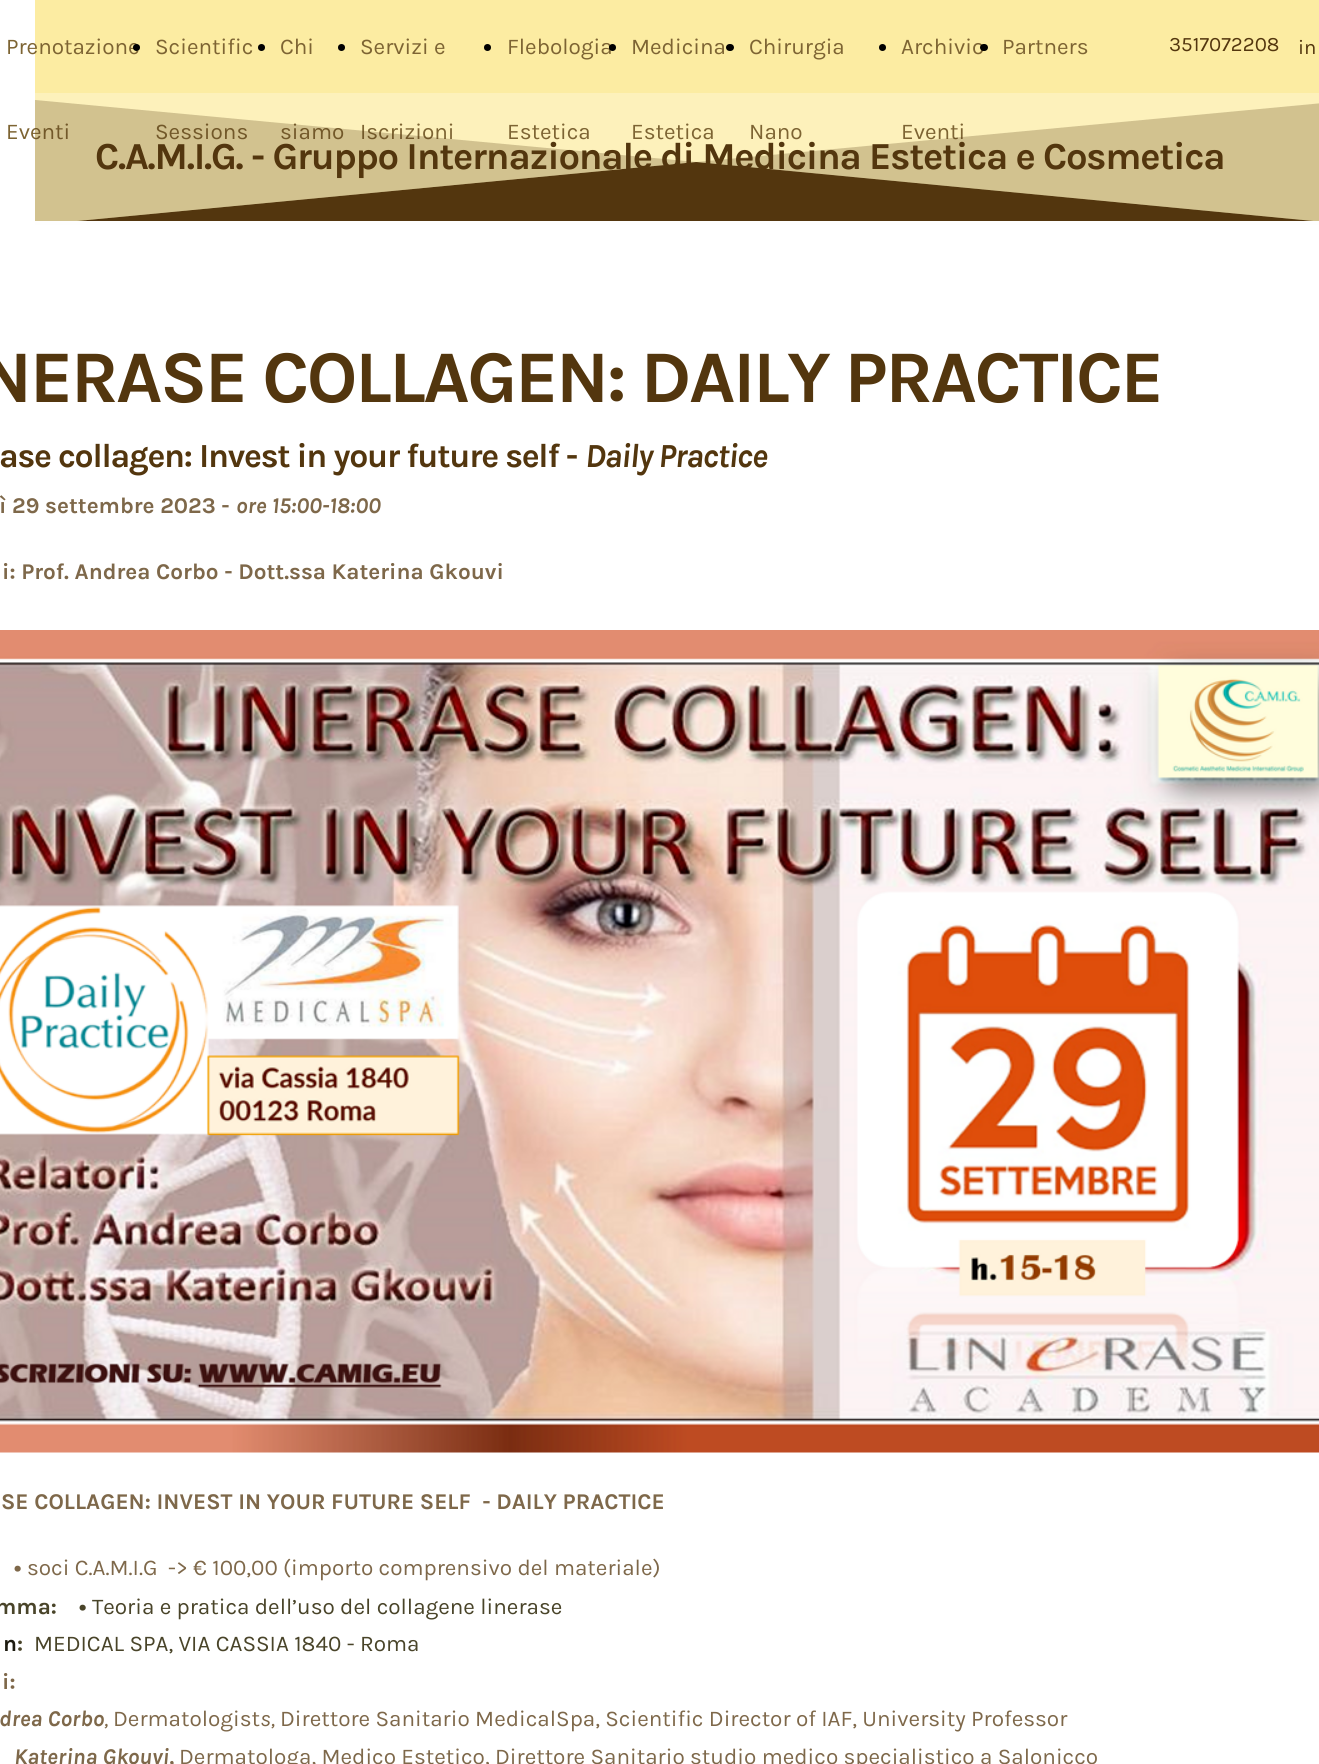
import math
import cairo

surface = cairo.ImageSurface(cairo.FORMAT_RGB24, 1319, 1764)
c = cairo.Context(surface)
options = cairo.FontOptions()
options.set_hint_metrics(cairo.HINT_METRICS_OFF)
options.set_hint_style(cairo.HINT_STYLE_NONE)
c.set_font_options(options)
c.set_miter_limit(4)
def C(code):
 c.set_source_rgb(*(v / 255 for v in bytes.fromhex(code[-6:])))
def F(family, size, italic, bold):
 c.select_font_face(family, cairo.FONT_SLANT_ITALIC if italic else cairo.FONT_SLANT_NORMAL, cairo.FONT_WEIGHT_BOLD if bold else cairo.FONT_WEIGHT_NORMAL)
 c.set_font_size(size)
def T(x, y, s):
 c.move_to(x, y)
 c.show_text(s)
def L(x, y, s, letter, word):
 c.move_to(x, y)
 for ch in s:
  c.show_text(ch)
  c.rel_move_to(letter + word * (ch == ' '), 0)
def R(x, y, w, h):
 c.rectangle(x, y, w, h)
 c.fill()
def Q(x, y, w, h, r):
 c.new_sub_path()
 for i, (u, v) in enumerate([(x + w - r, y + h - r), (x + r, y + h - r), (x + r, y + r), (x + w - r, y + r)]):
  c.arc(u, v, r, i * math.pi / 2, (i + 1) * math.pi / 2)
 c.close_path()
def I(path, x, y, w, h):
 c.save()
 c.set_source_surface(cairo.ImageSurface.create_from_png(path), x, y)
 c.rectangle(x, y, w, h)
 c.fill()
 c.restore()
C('ffffff')
c.paint()
C('fceca2')
R(35,0,1284,93)
F('Karla',22.5,0,0)
C('7d6433')
T(6,54,'Prenotazione')
C('fdf1bb')
R(35,93,1284,128)
C('7d6433')
T(6,139,'Eventi')
C('000000')
c.new_path()
c.arc(136.5,47.5,3.5,0,2 * math.pi)
c.fill()
C('7d6433')
T(155,54,'Scientific')
T(155,139,'Sessions')
C('000000')
c.new_path()
c.arc(261.5,47.5,3.5,0,2 * math.pi)
c.fill()
C('7d6433')
T(280,54,'Chi')
T(280,139,'siamo')
C('000000')
c.new_path()
c.arc(341.5,47.5,3.5,0,2 * math.pi)
c.fill()
C('7d6433')
T(360,54,'Servizi e')
T(360,139,'Iscrizioni')
C('000000')
c.new_path()
c.arc(487.5,47.5,3.5,0,2 * math.pi)
c.fill()
C('7d6433')
T(507,54,'Flebologia')
T(507,139,'Estetica')
C('000000')
c.new_path()
c.arc(612.5,47.5,3.5,0,2 * math.pi)
c.fill()
C('7d6433')
T(631,54,'Medicina')
T(631,139,'Estetica')
C('000000')
Q(726,44,8,7,3.5)
c.fill()
C('7d6433')
T(749,54,'Chirurgia')
T(749,139,'Nano')
C('000000')
c.new_path()
c.arc(882.5,47.5,3.5,0,2 * math.pi)
c.fill()
C('7d6433')
T(901,54,'Archivio')
T(901,139,'Eventi')
C('000000')
Q(980,44,8,7,3.5)
c.fill()
C('7d6433')
T(1002,54,'Partners')
F('Karla',20.5,0,0)
C('53360e')
T(1169,51,'3517072208')
T(1298,54,'in')
c.new_path()
c.move_to(696,162)
c.line_to(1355,225)
c.line_to(35,225)
c.close_path()
c.fill()
c.set_source_rgba(0.325,0.212,0.055,0.25)
c.new_path()
c.move_to(696,162)
c.line_to(35,225)
c.line_to(35,100)
c.close_path()
c.fill()
c.new_path()
c.move_to(696,162)
c.line_to(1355,225)
c.line_to(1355,100)
c.close_path()
c.fill()
F('Karla',38.2,0,1)
C('53360e')
L(95,169,'C.A.M.I.G. - Gruppo Internazionale di Medicina Estetica e Cosmetica',-1.25,0)
C('fefefe')
R(35,221,1284,4)
F('Karla',74.25,0,1)
C('53360e')
L(-21,402,'NERASE COLLAGEN: DAILY PRACTICE',-2.5,0)
F('Karla',33.75,0,1)
L(-1,467,'ase collagen: Invest in your future self -',-1.25,0)
F('Karla',33.75,1,1)
L(585,467,'Daily Practice',-1.25,0)
F('Karla',22.5,0,1)
C('7e684a')
T(-1,513,'ì 29 settembre 2023 -')
F('Karla',22.5,1,1)
T(236,513,'ore 15:00-18:00')
F('Karla',22.5,0,1)
T(2,579,'i: Prof. Andrea Corbo - Dott.ssa Katerina Gkouvi')
I('1.png',0,630,1319,823)
T(1,1509,'SE COLLAGEN: INVEST IN YOUR FUTURE SELF  - DAILY PRACTICE')
T(14,1575,'•')
F('Karla',22.5,0,0)
T(27,1575,'soci C.A.M.I.G  -> € 100,00 (importo comprensivo del materiale)')
F('Karla',22.5,0,1)
C('494429')
T(-5,1614,'mma:')
T(79,1614,'•')
F('Karla',22.5,0,0)
T(92,1614,'Teoria e pratica dell’uso del collagene linerase')
F('Karla',22.5,0,1)
C('1d1b10')
T(3,1651,'n')
C('494429')
T(17,1651,':')
F('Karla',22.5,0,0)
T(34,1651,'MEDICAL SPA, VIA CASSIA 1840 - Roma')
F('Karla',22.5,0,1)
C('7e684a')
T(2,1689,'i:')
F('Karla',22.5,1,1)
T(-1,1726,'drea Corbo')
F('Karla',22.5,1,0)
T(104,1726,',')
F('Karla',22.5,0,0)
T(113,1726,'Dermatologist')
F('Karla',22.5,1,0)
T(260,1726,'s,')
F('Karla',22.5,0,0)
T(280,1726,'Direttore Sanitario MedicalSpa, Scientific Director of IAF, University Professor')
F('Karla',22.5,1,1)
T(14,1764,'Katerina Gkouvi,')
F('Karla',22.5,0,0)
T(179,1764,'Dermatologa, Medico Estetico, Direttore Sanitario studio medico specialistico a Salonicco')
surface.write_to_png('o.png')
